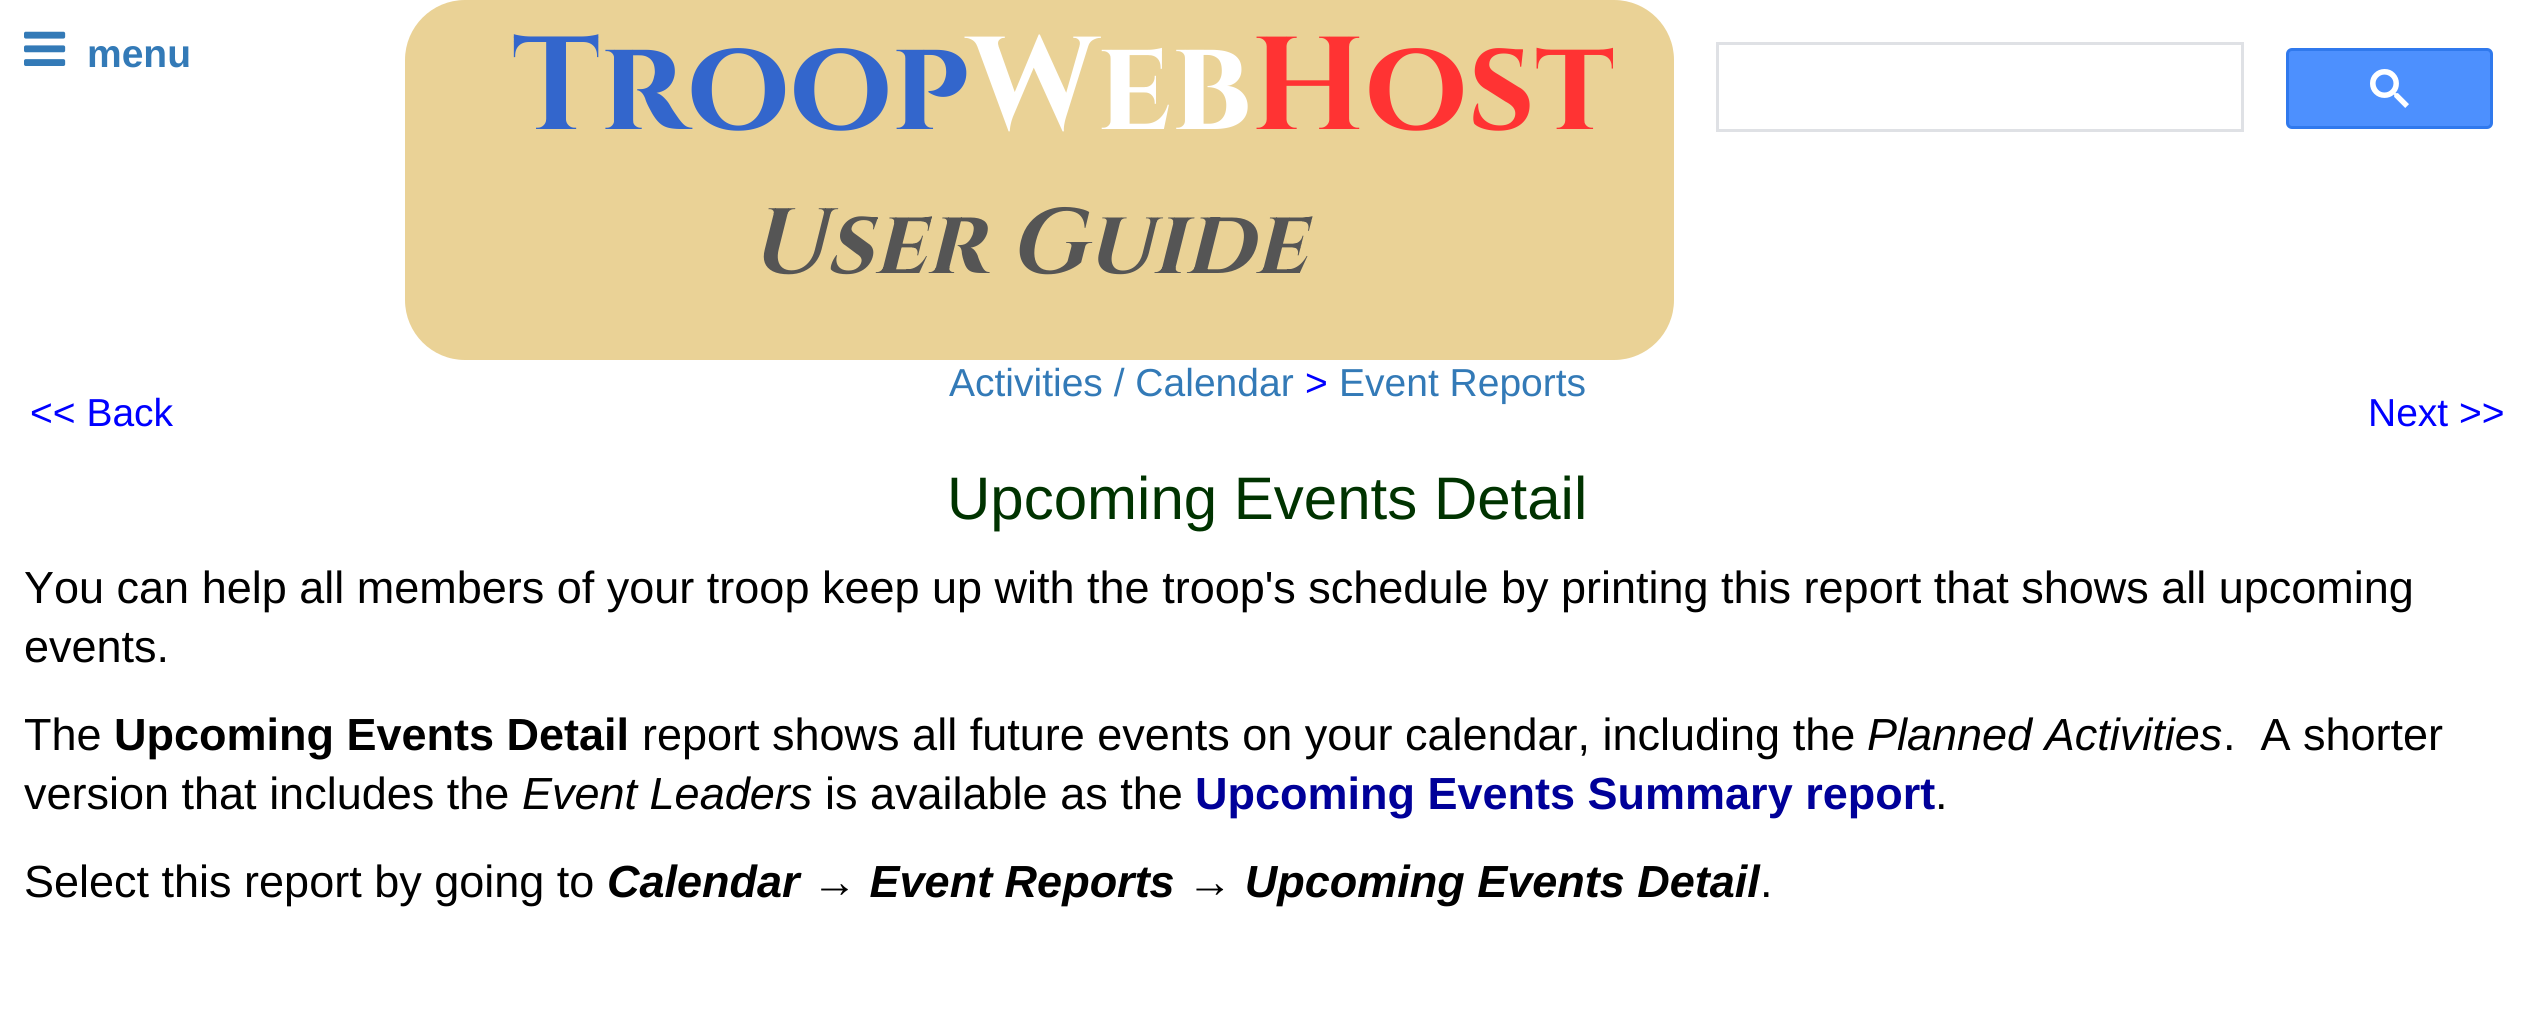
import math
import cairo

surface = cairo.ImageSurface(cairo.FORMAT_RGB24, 2534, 1026)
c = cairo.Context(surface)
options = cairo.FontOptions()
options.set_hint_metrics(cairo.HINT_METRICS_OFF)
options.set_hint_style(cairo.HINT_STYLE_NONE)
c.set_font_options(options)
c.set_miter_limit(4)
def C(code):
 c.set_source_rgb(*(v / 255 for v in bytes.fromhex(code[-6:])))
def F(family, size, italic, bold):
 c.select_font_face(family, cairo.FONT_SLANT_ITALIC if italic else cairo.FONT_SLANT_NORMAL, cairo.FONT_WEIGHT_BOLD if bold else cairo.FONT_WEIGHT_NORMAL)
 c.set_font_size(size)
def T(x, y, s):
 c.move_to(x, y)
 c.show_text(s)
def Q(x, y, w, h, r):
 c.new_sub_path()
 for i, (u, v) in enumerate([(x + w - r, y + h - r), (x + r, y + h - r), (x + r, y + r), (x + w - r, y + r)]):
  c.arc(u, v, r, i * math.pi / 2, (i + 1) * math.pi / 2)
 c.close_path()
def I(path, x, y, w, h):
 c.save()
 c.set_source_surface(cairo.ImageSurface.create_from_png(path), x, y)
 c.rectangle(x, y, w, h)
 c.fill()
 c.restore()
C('ffffff')
c.paint()
I('1.png',24,31,42,35)
F('Liberation Sans',39,0,1)
C('337ab7')
T(87,67,'menu')
C('ead296')
Q(405,0,1269,360,60)
c.fill()
F('Cinzel',132,0,1)
C('3366cc')
T(512,129,'Troop')
C('ffffff')
T(969,129,'Web')
C('ff3333')
T(1251,129,'Host')
F('Cinzel',92.5,1,1)
C('555555')
T(749,273,'User Guide')
c.rectangle(1717.5,43.5,525,87)
C('dfe1e5')
c.set_line_width(3)
c.stroke()
C('4d90fe')
Q(2287.5,49.5,204,78,4.5)
c.fill_preserve()
C('3079ed')
c.stroke()
I('2.png',2370,69,39,39)
F('Liberation Sans',39,0,0)
C('337ab7')
T(949,396,'Activities / Calendar')
C('0000ff')
T(1305,396,'>')
C('337ab7')
T(1339,396,'Event Reports')
C('0000ff')
T(30,426,'<< Back')
T(2368,426,'Next >>')
F('Liberation Sans',60,0,0)
C('003300')
T(947,519,'Upcoming Events Detail')
F('Liberation Sans',45,0,0)
C('000000')
T(24,603,'You can help all members of your troop keep up with the troop\'s schedule by printing this report that shows all upcoming')
T(24,662,'events.')
T(24,750,'The')
F('Liberation Sans',45,0,1)
T(114,750,'Upcoming Events Detail')
F('Liberation Sans',45,0,0)
T(642,750,'report shows all future events on your calendar, including the')
F('Liberation Sans',45,1,0)
T(1867,750,'Planned Activities')
F('Liberation Sans',45,0,0)
T(2223,750,'.  A shorter')
T(24,809,'version that includes the')
F('Liberation Sans',45,1,0)
T(522,809,'Event Leaders')
F('Liberation Sans',45,0,0)
T(825,809,'is available as the')
F('Liberation Sans',45,0,1)
C('000099')
T(1195,809,'Upcoming Events Summary report')
F('Liberation Sans',45,0,0)
C('000000')
T(1935,809,'.')
T(24,897,'Select this report by going to')
F('Liberation Sans',45,1,1)
T(607,897,'Calendar → Event Reports → Upcoming Events Detail')
F('Liberation Sans',45,0,0)
T(1760,897,'.')
surface.write_to_png('o.png')
